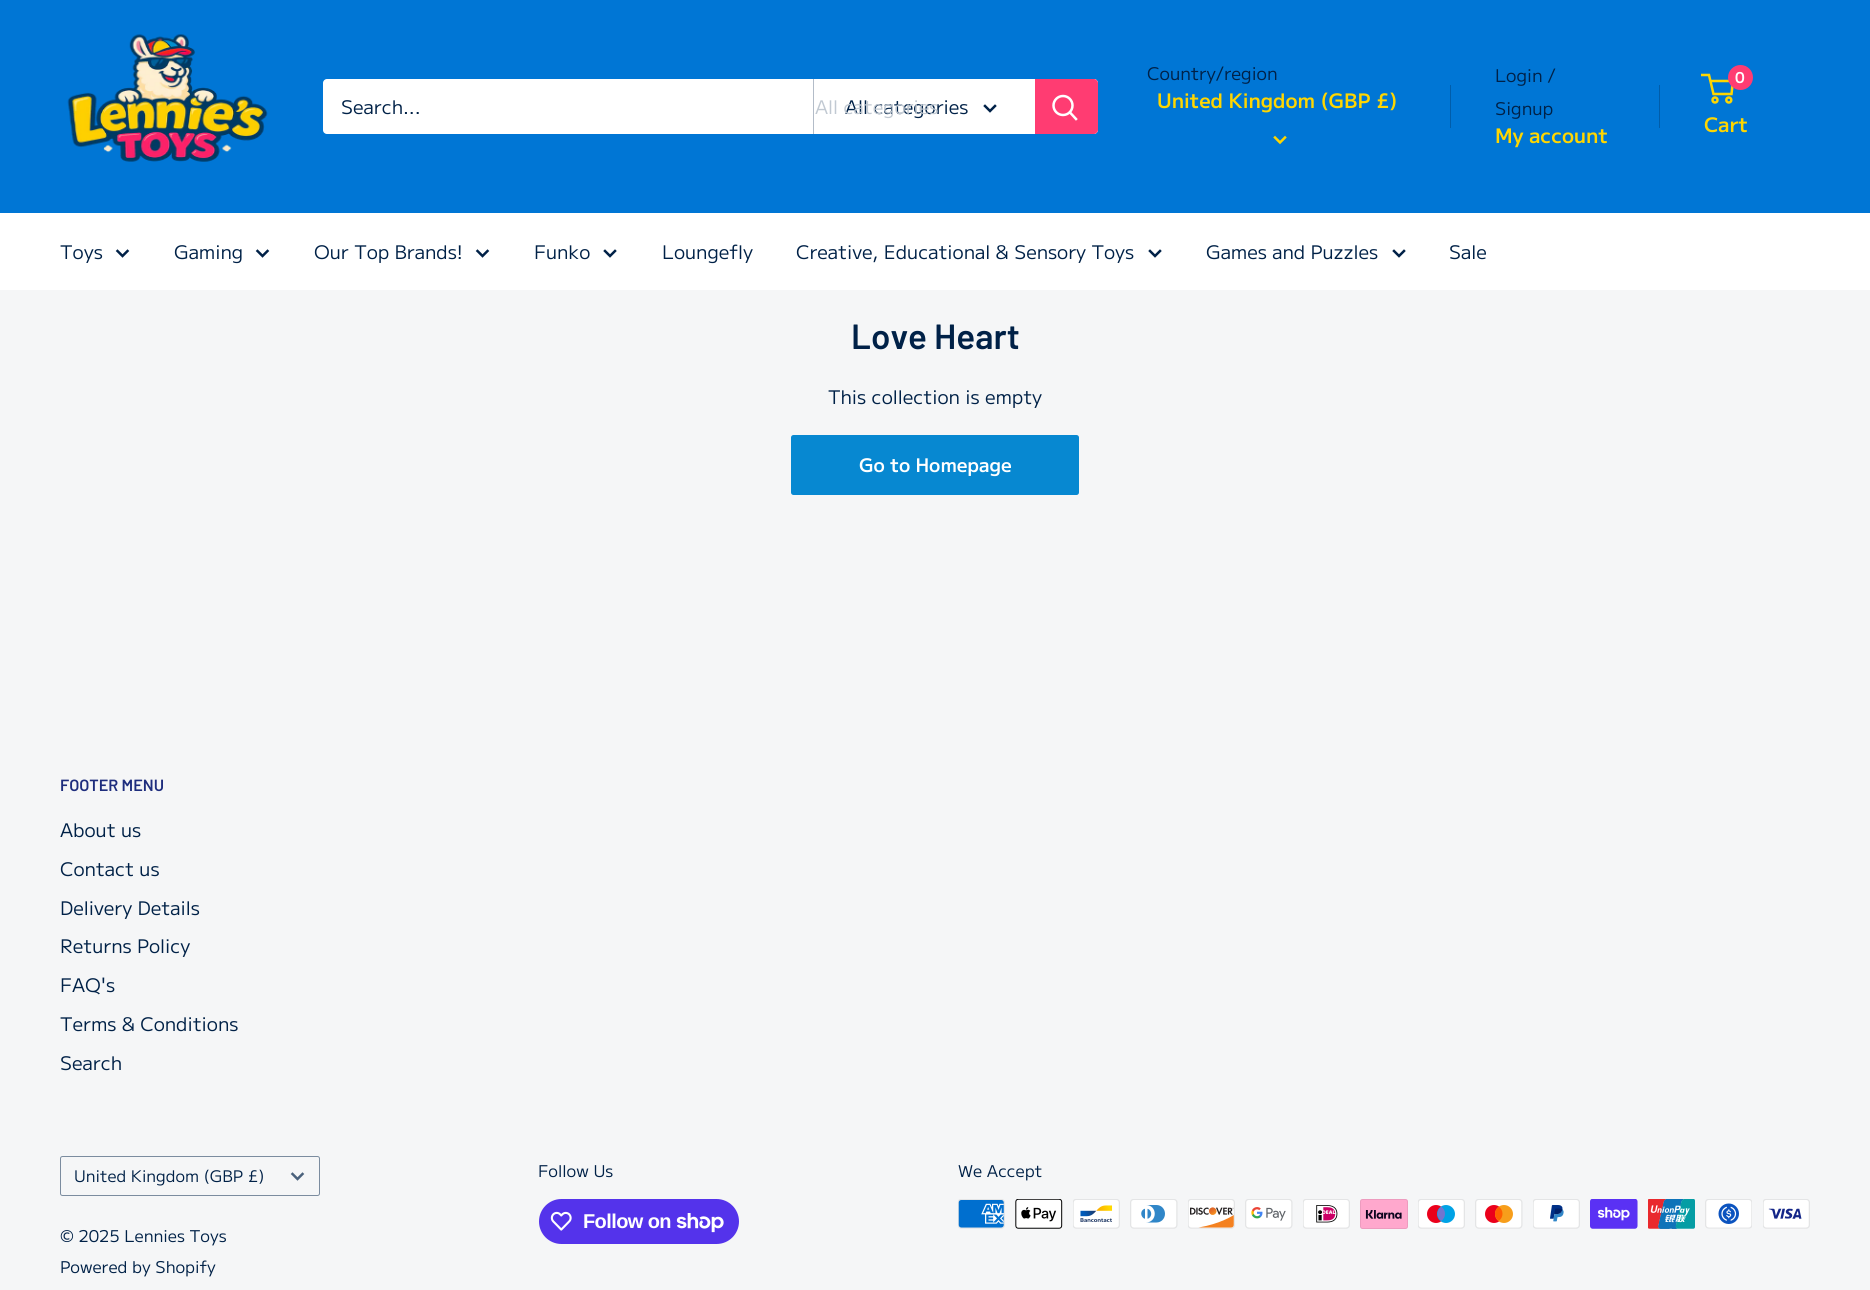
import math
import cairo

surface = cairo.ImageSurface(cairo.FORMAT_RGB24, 1870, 1290)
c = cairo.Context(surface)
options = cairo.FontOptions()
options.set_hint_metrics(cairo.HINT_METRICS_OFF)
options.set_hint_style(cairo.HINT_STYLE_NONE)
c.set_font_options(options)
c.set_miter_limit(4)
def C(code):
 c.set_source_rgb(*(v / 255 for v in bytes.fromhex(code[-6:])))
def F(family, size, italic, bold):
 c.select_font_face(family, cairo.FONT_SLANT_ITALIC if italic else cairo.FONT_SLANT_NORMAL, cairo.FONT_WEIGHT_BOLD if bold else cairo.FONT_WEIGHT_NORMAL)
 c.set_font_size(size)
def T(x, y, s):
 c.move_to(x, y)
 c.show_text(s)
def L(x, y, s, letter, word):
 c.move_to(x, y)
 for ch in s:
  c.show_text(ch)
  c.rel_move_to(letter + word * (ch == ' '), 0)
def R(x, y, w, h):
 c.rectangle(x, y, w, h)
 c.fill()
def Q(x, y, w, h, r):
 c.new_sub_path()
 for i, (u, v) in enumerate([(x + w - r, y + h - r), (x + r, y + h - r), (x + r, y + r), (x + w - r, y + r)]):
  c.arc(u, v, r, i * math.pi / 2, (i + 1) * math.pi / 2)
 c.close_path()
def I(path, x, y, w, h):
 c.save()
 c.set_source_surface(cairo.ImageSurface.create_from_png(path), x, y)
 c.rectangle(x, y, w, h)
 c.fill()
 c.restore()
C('f5f6f7')
c.paint()
C('0076d5')
R(0,0,1870,213)
I('1.png',67,34,201,128)
C('ffffff')
Q(323,79,775,55,4)
c.fill()
F('M PLUS 1',18.75,0,0)
C('002147')
T(341,114,'Search...')
C('b3bcc8')
R(813,79,1,55)
C('002147')
T(845,114,'All categories')
C('c1c9d2')
T(815,114,'All categories')
c.new_path()
c.move_to(995,106)
c.line_to(990,111)
c.line_to(985,106)
C('002147')
c.set_line_width(2.5)
c.set_line_cap(cairo.LINE_CAP_SQUARE)
c.stroke()
C('ff3c72')
c.new_path()
c.move_to(1035,79)
c.line_to(1094,79)
c.curve_to(1096,79,1098,81,1098,83)
c.line_to(1098,130)
c.curve_to(1098,132,1096,134,1094,134)
c.line_to(1035,134)
c.close_path()
c.fill()
c.new_path()
c.move_to(1076,119)
c.line_to(1070,112.5)
C('ffffff')
c.stroke()
c.arc(1063,105.5,9.5,0,2 * math.pi)
c.set_line_cap(cairo.LINE_CAP_BUTT)
c.stroke()
F('M PLUS 1',17.5,0,0)
C('002147')
T(1147,80,'Country/region')
F('M PLUS 1 SemiBold',20,0,0)
C('ffd600')
T(1157,108,'United Kingdom (GBP £)')
c.new_path()
c.move_to(1285,137.5)
c.line_to(1280,142.5)
c.line_to(1275,137.5)
c.set_line_cap(cairo.LINE_CAP_SQUARE)
c.stroke()
C('005daa')
R(1450,85,1,43)
F('M PLUS 1',17.5,0,0)
C('002147')
T(1495,82,'Login /')
T(1495,115,'Signup')
C('005daa')
R(1659,85,1,43)
F('M PLUS 1 SemiBold',20,0,0)
C('ffd600')
T(1495,143,'My account')
c.new_path()
c.arc(1715,100,2.5,0,2 * math.pi)
c.set_line_cap(cairo.LINE_CAP_BUTT)
c.stroke()
c.arc(1728.8,100,2.5,0,2 * math.pi)
c.stroke()
c.new_path()
c.move_to(1710.5,81)
c.line_to(1733,81)
c.line_to(1731.5,94)
c.line_to(1713.5,94)
c.line_to(1709,75)
c.line_to(1701,75)
c.stroke()
C('ff3c72')
c.arc(1740.5,77.5,12.5,0,2 * math.pi)
c.fill()
F('M PLUS 1 SemiBold',15,0,0)
C('ffffff')
T(1735,83,'0')
F('M PLUS 1 SemiBold',20,0,0)
C('ffd600')
T(1704,132,'Cart')
C('ffffff')
R(0,213,1870,77)
F('M PLUS 1',18.75,0,0)
C('002147')
T(60,259,'Toys')
c.new_path()
c.move_to(127.5,251)
c.line_to(122.5,256)
c.line_to(117.5,251)
c.set_line_cap(cairo.LINE_CAP_SQUARE)
c.stroke()
T(174,259,'Gaming')
c.new_path()
c.move_to(267.5,251)
c.line_to(262.5,256)
c.line_to(257.5,251)
c.stroke()
T(314,259,'Our Top Brands!')
c.new_path()
c.move_to(487.5,251)
c.line_to(482.5,256)
c.line_to(477.5,251)
c.stroke()
T(534,259,'Funko')
c.new_path()
c.move_to(615,251)
c.line_to(610,256)
c.line_to(605,251)
c.stroke()
T(662,259,'Loungefly')
T(796,259,'Creative, Educational & Sensory Toys')
c.new_path()
c.move_to(1160,251)
c.line_to(1155,256)
c.line_to(1150,251)
c.stroke()
T(1206,259,'Games and Puzzles')
c.new_path()
c.move_to(1404,251)
c.line_to(1399,256)
c.line_to(1394,251)
c.stroke()
T(1449,259,'Sale')
F('Barlow SemiBold',35,0,0)
T(851,349,'Love Heart')
F('M PLUS 1',18.75,0,0)
T(828,404,'This collection is empty')
C('0788d1')
Q(791,435,288,60,2.5)
c.fill()
F('M PLUS 1 SemiBold',18.75,0,0)
C('ffffff')
T(859,472,'Go to Homepage')
F('Barlow SemiBold',16.25,0,0)
C('1e2d7d')
T(60,791,'FOOTER MENU')
F('M PLUS 1',18.75,0,0)
C('002147')
T(60,837,'About us')
T(60,876,'Contact us')
T(60,915,'Delivery Details')
T(60,953,'Returns Policy')
T(60,992,'FAQ\'s')
T(60,1031,'Terms & Conditions')
T(60,1070,'Search')
Q(60.5,1156.5,259,39,2)
C('7b8c9f')
c.set_line_width(1)
c.set_line_cap(cairo.LINE_CAP_BUTT)
c.stroke()
F('M PLUS 1',16,0,0)
C('002147')
T(74,1182,'United Kingdom (GBP £)')
c.new_path()
c.move_to(302.5,1174)
c.line_to(297.5,1179)
c.line_to(292.5,1174)
C('4a617c')
c.set_line_width(2.5)
c.set_line_cap(cairo.LINE_CAP_SQUARE)
c.stroke()
F('M PLUS 1',16.25,0,0)
C('002147')
T(60,1242,'© 2025 Lennies Toys')
T(60,1273,'Powered by Shopify')
T(538,1177,'Follow Us')
C('5433eb')
Q(539,1199,200,45,22.5)
c.fill()
I('2.png',550,1211,22,20)
F('Liberation Sans',20,0,1)
C('ffffff')
L(583,1228,'Follow on',-.6,0)
I('3.png',676,1213,48,20)
F('M PLUS 1',16.25,0,0)
C('002147')
T(958,1177,'We Accept')
I('4.png',958,1199,47,30)
I('5.png',1015,1199,48,30)
I('6.png',1073,1199,47,30)
I('7.png',1130,1199,48,30)
I('8.png',1188,1199,47,30)
I('9.png',1245,1199,48,30)
I('10.png',1303,1199,47,30)
I('11.png',1360,1199,48,30)
I('12.png',1418,1199,47,30)
I('13.png',1475,1199,48,30)
I('14.png',1533,1199,47,30)
I('15.png',1590,1199,48,30)
I('16.png',1648,1199,47,30)
I('17.png',1705,1199,47,30)
I('18.png',1763,1199,47,30)
surface.write_to_png('o.png')
